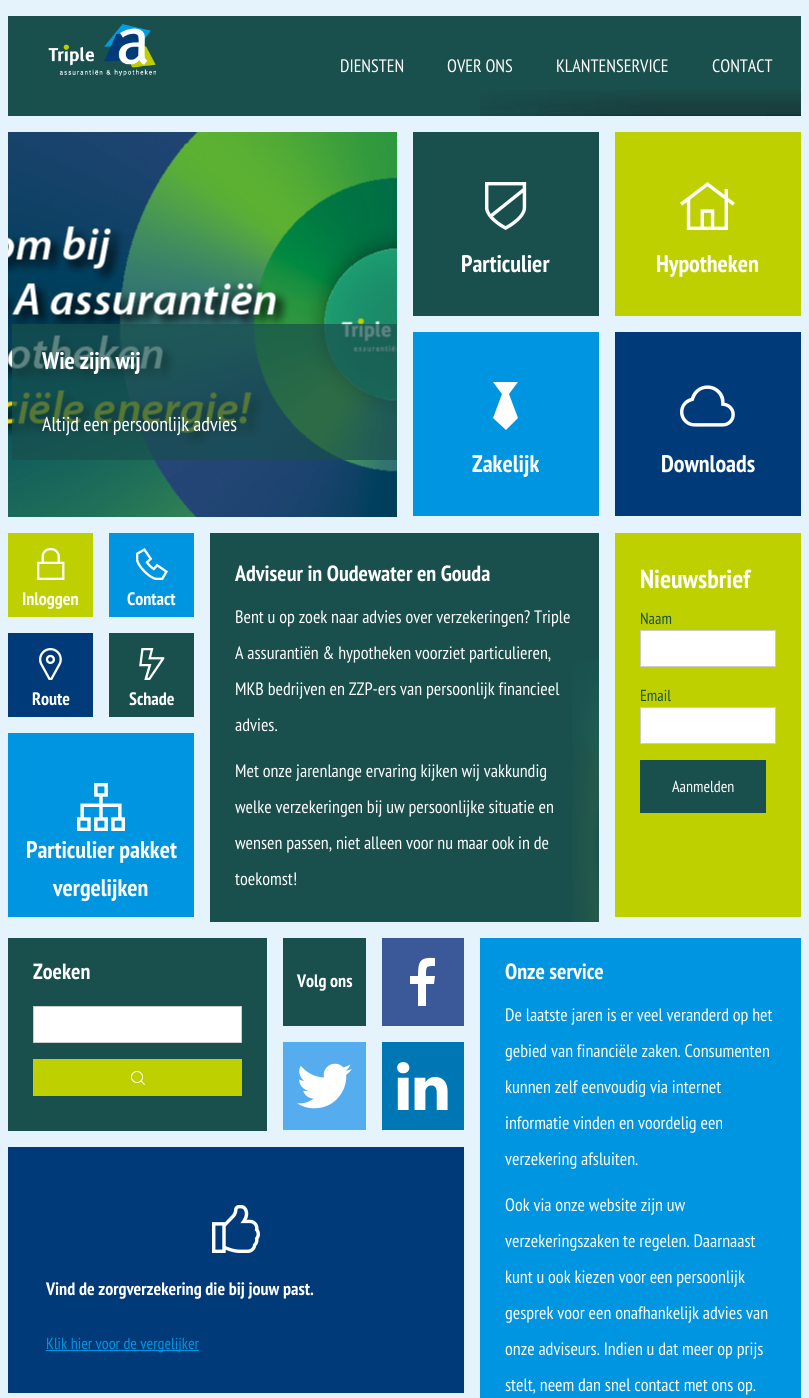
import math
import cairo

surface = cairo.ImageSurface(cairo.FORMAT_RGB24, 809, 1398)
c = cairo.Context(surface)
options = cairo.FontOptions()
options.set_hint_metrics(cairo.HINT_METRICS_OFF)
options.set_hint_style(cairo.HINT_STYLE_NONE)
c.set_font_options(options)
c.set_miter_limit(4)
def C(code):
 c.set_source_rgb(*(v / 255 for v in bytes.fromhex(code[-6:])))
def F(family, size, italic, bold):
 c.select_font_face(family, cairo.FONT_SLANT_ITALIC if italic else cairo.FONT_SLANT_NORMAL, cairo.FONT_WEIGHT_BOLD if bold else cairo.FONT_WEIGHT_NORMAL)
 c.set_font_size(size)
def T(x, y, s):
 c.move_to(x, y)
 c.show_text(s)
def R(x, y, w, h):
 c.rectangle(x, y, w, h)
 c.fill()
def I(path, x, y, w, h):
 c.save()
 c.set_source_surface(cairo.ImageSurface.create_from_png(path), x, y)
 c.rectangle(x, y, w, h)
 c.fill()
 c.restore()
C('e5f4fc')
c.paint()
C('194f4d')
R(8,16,793,100)
I('1.png',48,24,108,52)
I('2.png',480,90,321,26)
F('PT Sans Narrow',18,0,0)
C('ffffff')
T(340,72,'DIENSTEN')
T(447,72,'OVER ONS')
T(556,72,'KLANTENSERVICE')
T(712,72,'CONTACT')
I('3.png',8,132,389,385)
c.set_source_rgba(0.098,0.31,0.302,0.7)
R(12,324,385,136)
F('PT Sans Narrow',24,0,1)
C('ffffff')
T(42,369,'Wie zijn wij')
F('PT Sans Narrow',20,0,0)
T(42,431,'Altijd een persoonlijk advies')
C('194f4d')
R(413,132,186,184)
I('4.png',485,182,42,48)
F('PT Sans Narrow',24,0,1)
C('ffffff')
T(461,272,'Particulier')
C('bfd000')
R(615,132,186,184)
I('5.png',680,182,55,48)
C('ffffff')
T(656,272,'Hypotheken')
C('0095e0')
R(413,332,186,184)
C('ffffff')
c.new_path()
c.move_to(509,394)
c.line_to(518,418)
c.line_to(506,430)
c.line_to(493,418)
c.line_to(502,394)
c.line_to(493,382)
c.line_to(518,382)
c.close_path()
c.fill()
T(472,472,'Zakelijk')
C('003a78')
R(615,332,186,184)
I('6.png',680,385,55,42)
C('ffffff')
T(661,472,'Downloads')
C('bfd000')
R(8,533,85,84)
I('7.png',37,548,28,32)
F('PT Sans Narrow',18,0,1)
C('ffffff')
T(22,605,'Inloggen')
C('0095e0')
R(109,533,85,84)
I('8.png',136,548,32,32)
C('ffffff')
T(127,605,'Contact')
C('003a78')
R(8,633,85,84)
I('9.png',39,648,23,32)
C('ffffff')
T(32,705,'Route')
C('194f4d')
R(109,633,85,84)
I('10.png',139,648,26,32)
C('ffffff')
T(129,705,'Schade')
C('0095e0')
R(8,733,186,184)
I('11.png',77,783,48,48)
F('PT Sans Narrow',24,0,1)
C('ffffff')
T(26,858,'Particulier pakket')
T(53,896,'vergelijken')
C('194f4d')
R(210,533,389,389)
I('12.png',572,660,27,262)
F('PT Sans Narrow',22,0,1)
C('ffffff')
T(235,581,'Adviseur in Oudewater en Gouda')
F('PT Sans Narrow',18,0,0)
T(235,623,'Bent u op zoek naar advies over verzekeringen? Triple')
T(235,659,'A assurantiën & hypotheken voorziet particulieren,')
T(235,695,'MKB bedrijven en ZZP-ers van persoonlijk financieel')
T(235,731,'advies.')
T(235,777,'Met onze jarenlange ervaring kijken wij vakkundig')
T(235,813,'welke verzekeringen bij uw persoonlijke situatie en')
T(235,849,'wensen passen, niet alleen voor nu maar ook in de')
T(235,885,'toekomst!')
C('bfd000')
R(615,533,186,384)
F('PT Sans Narrow',26,0,1)
C('ffffff')
T(640,588,'Nieuwsbrief')
F('PT Sans Narrow',16,0,0)
C('194f4d')
T(640,624,'Naam')
C('ffffff')
c.rectangle(640.5,630.5,135,36)
c.fill_preserve()
C('cccccc')
c.set_line_width(1)
c.stroke()
C('194f4d')
T(640,701,'Email')
C('ffffff')
c.rectangle(640.5,707.5,135,36)
c.fill_preserve()
C('cccccc')
c.stroke()
C('194f4d')
R(640,760,126,53)
C('ffffff')
T(672,792,'Aanmelden')
C('194f4d')
R(8,938,259,193)
F('PT Sans Narrow',22,0,1)
C('ffffff')
T(33,979,'Zoeken')
c.rectangle(33.5,1006.5,208,36)
c.fill_preserve()
C('cccccc')
c.stroke()
C('bfd000')
R(33,1059,209,37)
I('13.png',131,1071,14,14)
C('194f4d')
R(283,938,83,88)
F('PT Sans Narrow',18,0,1)
C('ffffff')
T(297,987,'Volg ons')
C('3b5998')
R(382,938,82,88)
C('ffffff')
c.new_path()
c.move_to(426,1006)
c.line_to(418,1006)
c.line_to(418,984)
c.line_to(410,984)
c.line_to(410,976)
c.line_to(418,976)
c.curve_to(418,961,420,957,435,958)
c.line_to(435,966)
c.curve_to(426,966,426,966,426,976)
c.line_to(435,976)
c.line_to(434,984)
c.line_to(426,984)
c.close_path()
c.fill()
C('55acee')
R(283,1042,83,88)
I('14.png',297,1063,55,46)
C('0077b5')
R(382,1042,82,88)
I('15.png',397,1062,51,48)
C('003a78')
R(8,1147,456,246)
I('16.png',212,1205,48,48)
C('ffffff')
T(46,1295,'Vind de zorgverzekering die bij jouw past.')
C('0095e0')
R(46,1350,153,1)
F('PT Sans Narrow',16,0,0)
T(46,1349,'Klik hier voor de vergelijker')
R(480,938,321,460)
F('PT Sans Narrow',22,0,1)
C('ffffff')
T(505,979,'Onze service')
F('PT Sans Narrow',18,0,0)
T(505,1021,'De laatste jaren is er veel veranderd op het')
T(505,1057,'gebied van financiële zaken. Consumenten')
T(505,1093,'kunnen zelf eenvoudig via internet')
T(505,1129,'informatie vinden en voordelig een')
T(505,1165,'verzekering afsluiten.')
T(505,1211,'Ook via onze website zijn uw')
T(505,1247,'verzekeringszaken te regelen. Daarnaast')
T(505,1283,'kunt u ook kiezen voor een persoonlijk')
T(505,1319,'gesprek voor een onafhankelijk advies van')
T(505,1355,'onze adviseurs. Indien u dat meer op prijs')
T(505,1391,'stelt, neem dan snel contact met ons op.')
surface.write_to_png('o.png')
